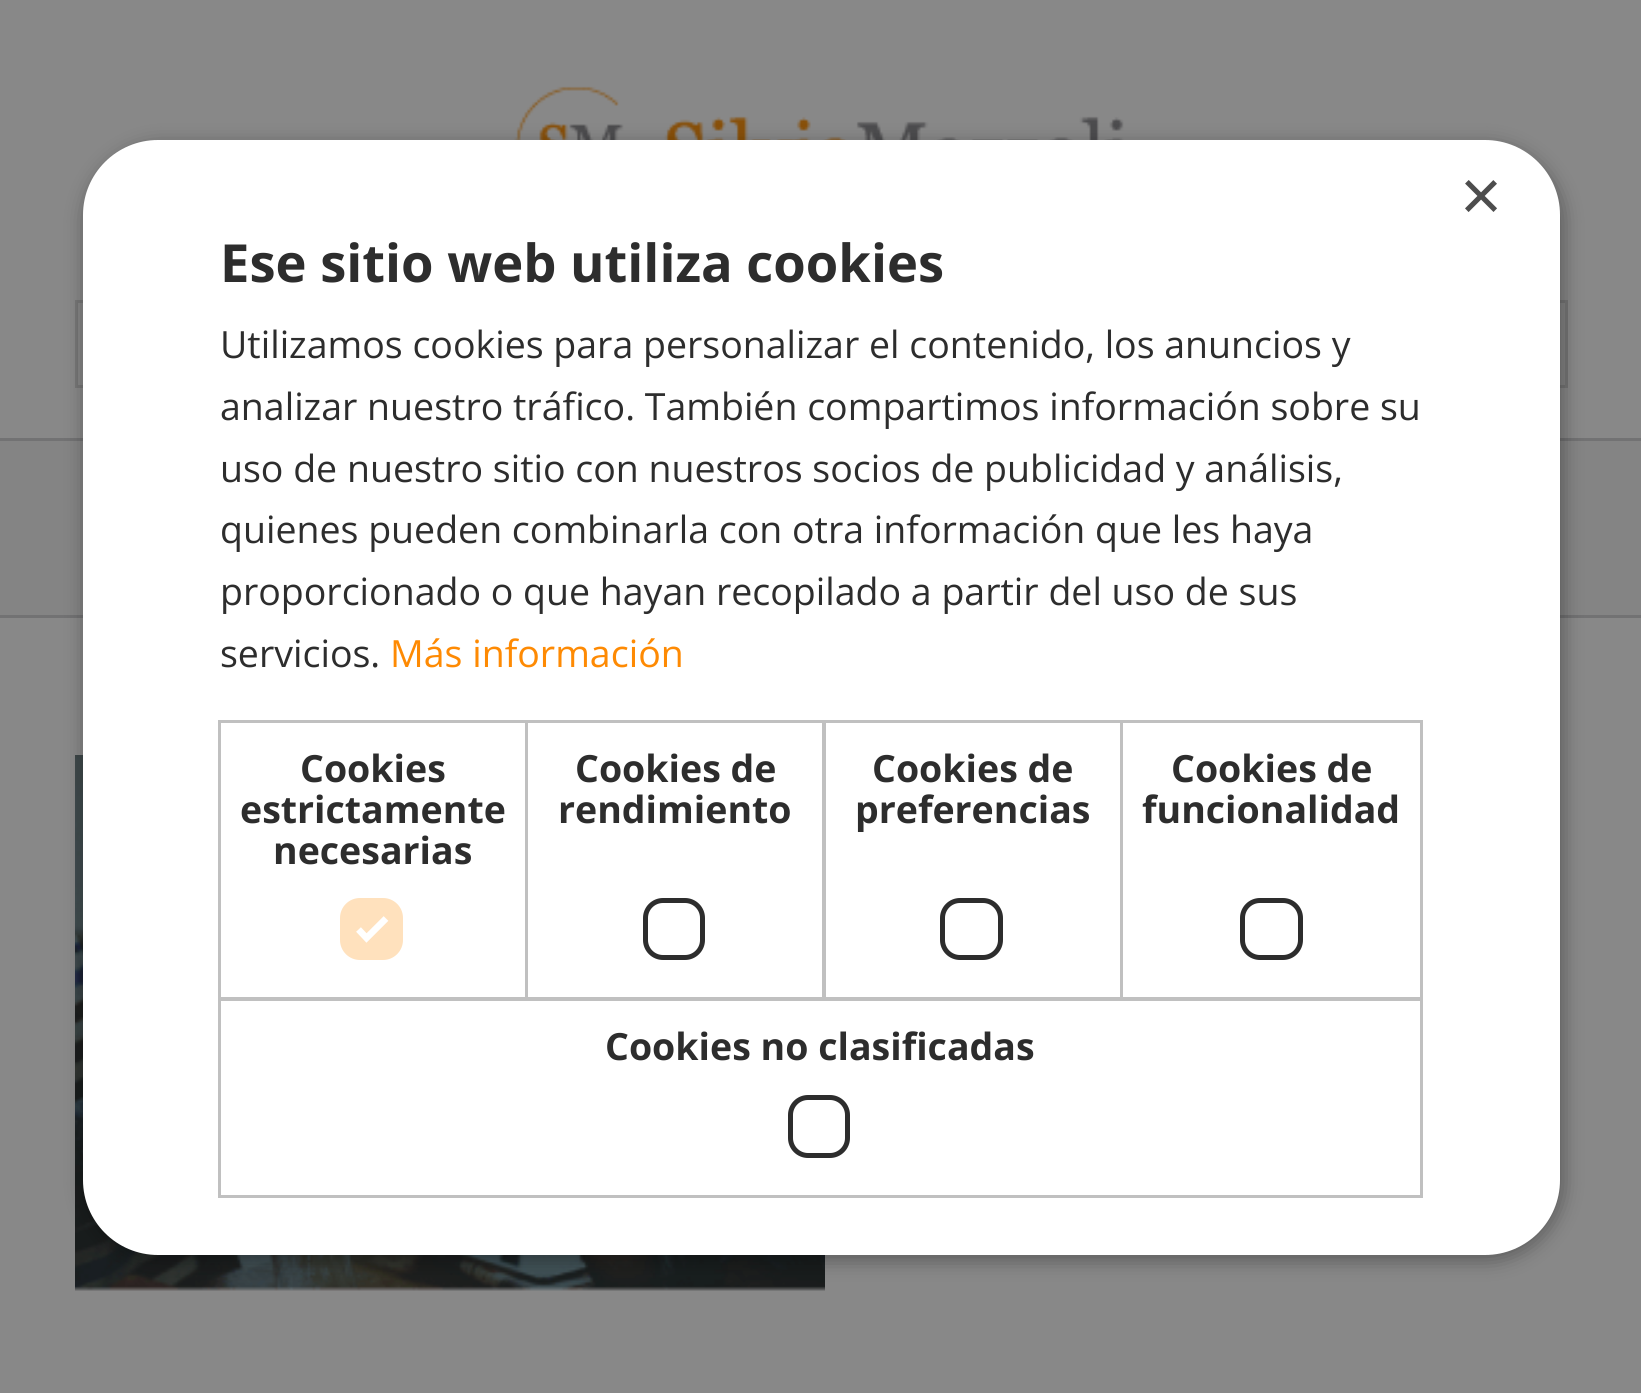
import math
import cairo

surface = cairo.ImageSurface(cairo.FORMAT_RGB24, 1641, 1393)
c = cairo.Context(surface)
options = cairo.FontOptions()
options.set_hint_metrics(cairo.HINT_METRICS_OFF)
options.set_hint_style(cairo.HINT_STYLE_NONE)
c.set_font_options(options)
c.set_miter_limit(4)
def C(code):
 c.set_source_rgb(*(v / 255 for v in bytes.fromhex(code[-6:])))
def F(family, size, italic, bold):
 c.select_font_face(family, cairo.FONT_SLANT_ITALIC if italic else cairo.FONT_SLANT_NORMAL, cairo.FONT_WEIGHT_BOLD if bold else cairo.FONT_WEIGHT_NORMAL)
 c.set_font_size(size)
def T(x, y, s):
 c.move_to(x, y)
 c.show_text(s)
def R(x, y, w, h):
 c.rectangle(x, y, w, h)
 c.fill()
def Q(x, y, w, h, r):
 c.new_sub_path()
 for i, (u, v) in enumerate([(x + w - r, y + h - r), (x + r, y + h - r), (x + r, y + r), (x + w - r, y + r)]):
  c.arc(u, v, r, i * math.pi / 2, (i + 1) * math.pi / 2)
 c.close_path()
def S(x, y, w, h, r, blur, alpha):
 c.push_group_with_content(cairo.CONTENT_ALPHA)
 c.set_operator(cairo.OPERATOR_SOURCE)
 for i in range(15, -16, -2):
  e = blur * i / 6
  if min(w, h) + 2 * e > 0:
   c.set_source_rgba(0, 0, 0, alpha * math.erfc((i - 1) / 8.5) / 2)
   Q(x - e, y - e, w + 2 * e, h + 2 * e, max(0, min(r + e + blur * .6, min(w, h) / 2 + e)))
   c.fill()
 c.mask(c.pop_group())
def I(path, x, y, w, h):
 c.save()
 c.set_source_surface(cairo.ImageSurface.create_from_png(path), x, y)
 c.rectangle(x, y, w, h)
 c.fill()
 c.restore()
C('888888')
c.paint()
I('1.png',514,86,610,54)
C('858585')
c.rectangle(76.5,301.5,1490,85)
c.fill_preserve()
C('767676')
c.set_line_width(3)
c.stroke()
C('848484')
R(0,441,1641,174)
C('727273')
R(0,438,1641,3)
R(0,615,1641,3)
I('2.png',75,755,750,536)
C('000000')
S(85,145,1478,1115,75,10,.35)
C('ffffff')
Q(83,140,1477,1115,75)
c.fill()
F('Liberation Sans',72,0,0)
C('4d4d4d')
T(1460,220,'×')
F('Open Sans',52.5,0,1)
C('2d2d2d')
T(220,282,'Ese sitio web utiliza cookies')
F('Open Sans',37.5,0,0)
T(220,358,'Utilizamos cookies para personalizar el contenido, los anuncios y')
T(220,420,'analizar nuestro tráfico. También compartimos información sobre su')
T(220,482,'uso de nuestro sitio con nuestros socios de publicidad y análisis,')
T(220,543,'quienes pueden combinarla con otra información que les haya')
T(220,605,'proporcionado o que hayan recopilado a partir del uso de sus')
T(220,667,'servicios.')
C('fe8a03')
T(390,667,'Más información')
c.rectangle(219.5,721.5,307,277)
C('c0c0c0')
c.stroke()
F('Open Sans',37.5,0,1)
C('2d2d2d')
T(300,782,'Cookies')
T(240,823,'estrictamente')
T(273,864,'necesarias')
C('ffe1bd')
Q(340,898,63,62,20)
c.fill()
c.new_path()
c.move_to(358.5,929.5)
c.line_to(366.5,938)
c.line_to(386,918.5)
C('ffffff')
c.set_line_width(6.6)
c.stroke()
c.rectangle(526.5,721.5,297,277)
C('c0c0c0')
c.set_line_width(3)
c.stroke()
C('2d2d2d')
T(575,782,'Cookies de')
T(558,823,'rendimiento')
Q(645.5,900.5,57,57,17.5)
c.set_line_width(5)
c.stroke()
c.rectangle(824.5,721.5,297,277)
C('c0c0c0')
c.set_line_width(3)
c.stroke()
C('2d2d2d')
T(872,782,'Cookies de')
T(855,823,'preferencias')
Q(942.5,900.5,58,57,17.5)
c.set_line_width(5)
c.stroke()
c.rectangle(1121.5,721.5,300,277)
C('c0c0c0')
c.set_line_width(3)
c.stroke()
C('2d2d2d')
T(1171,782,'Cookies de')
T(1142,823,'funcionalidad')
Q(1242.5,900.5,58,57,17.5)
c.set_line_width(5)
c.stroke()
c.rectangle(219.5,999.5,1202,197)
C('c0c0c0')
c.set_line_width(3)
c.stroke()
C('2d2d2d')
T(605,1060,'Cookies no clasificadas')
Q(790.5,1097.5,57,58,17.5)
c.set_line_width(5)
c.stroke()
surface.write_to_png('o.png')
